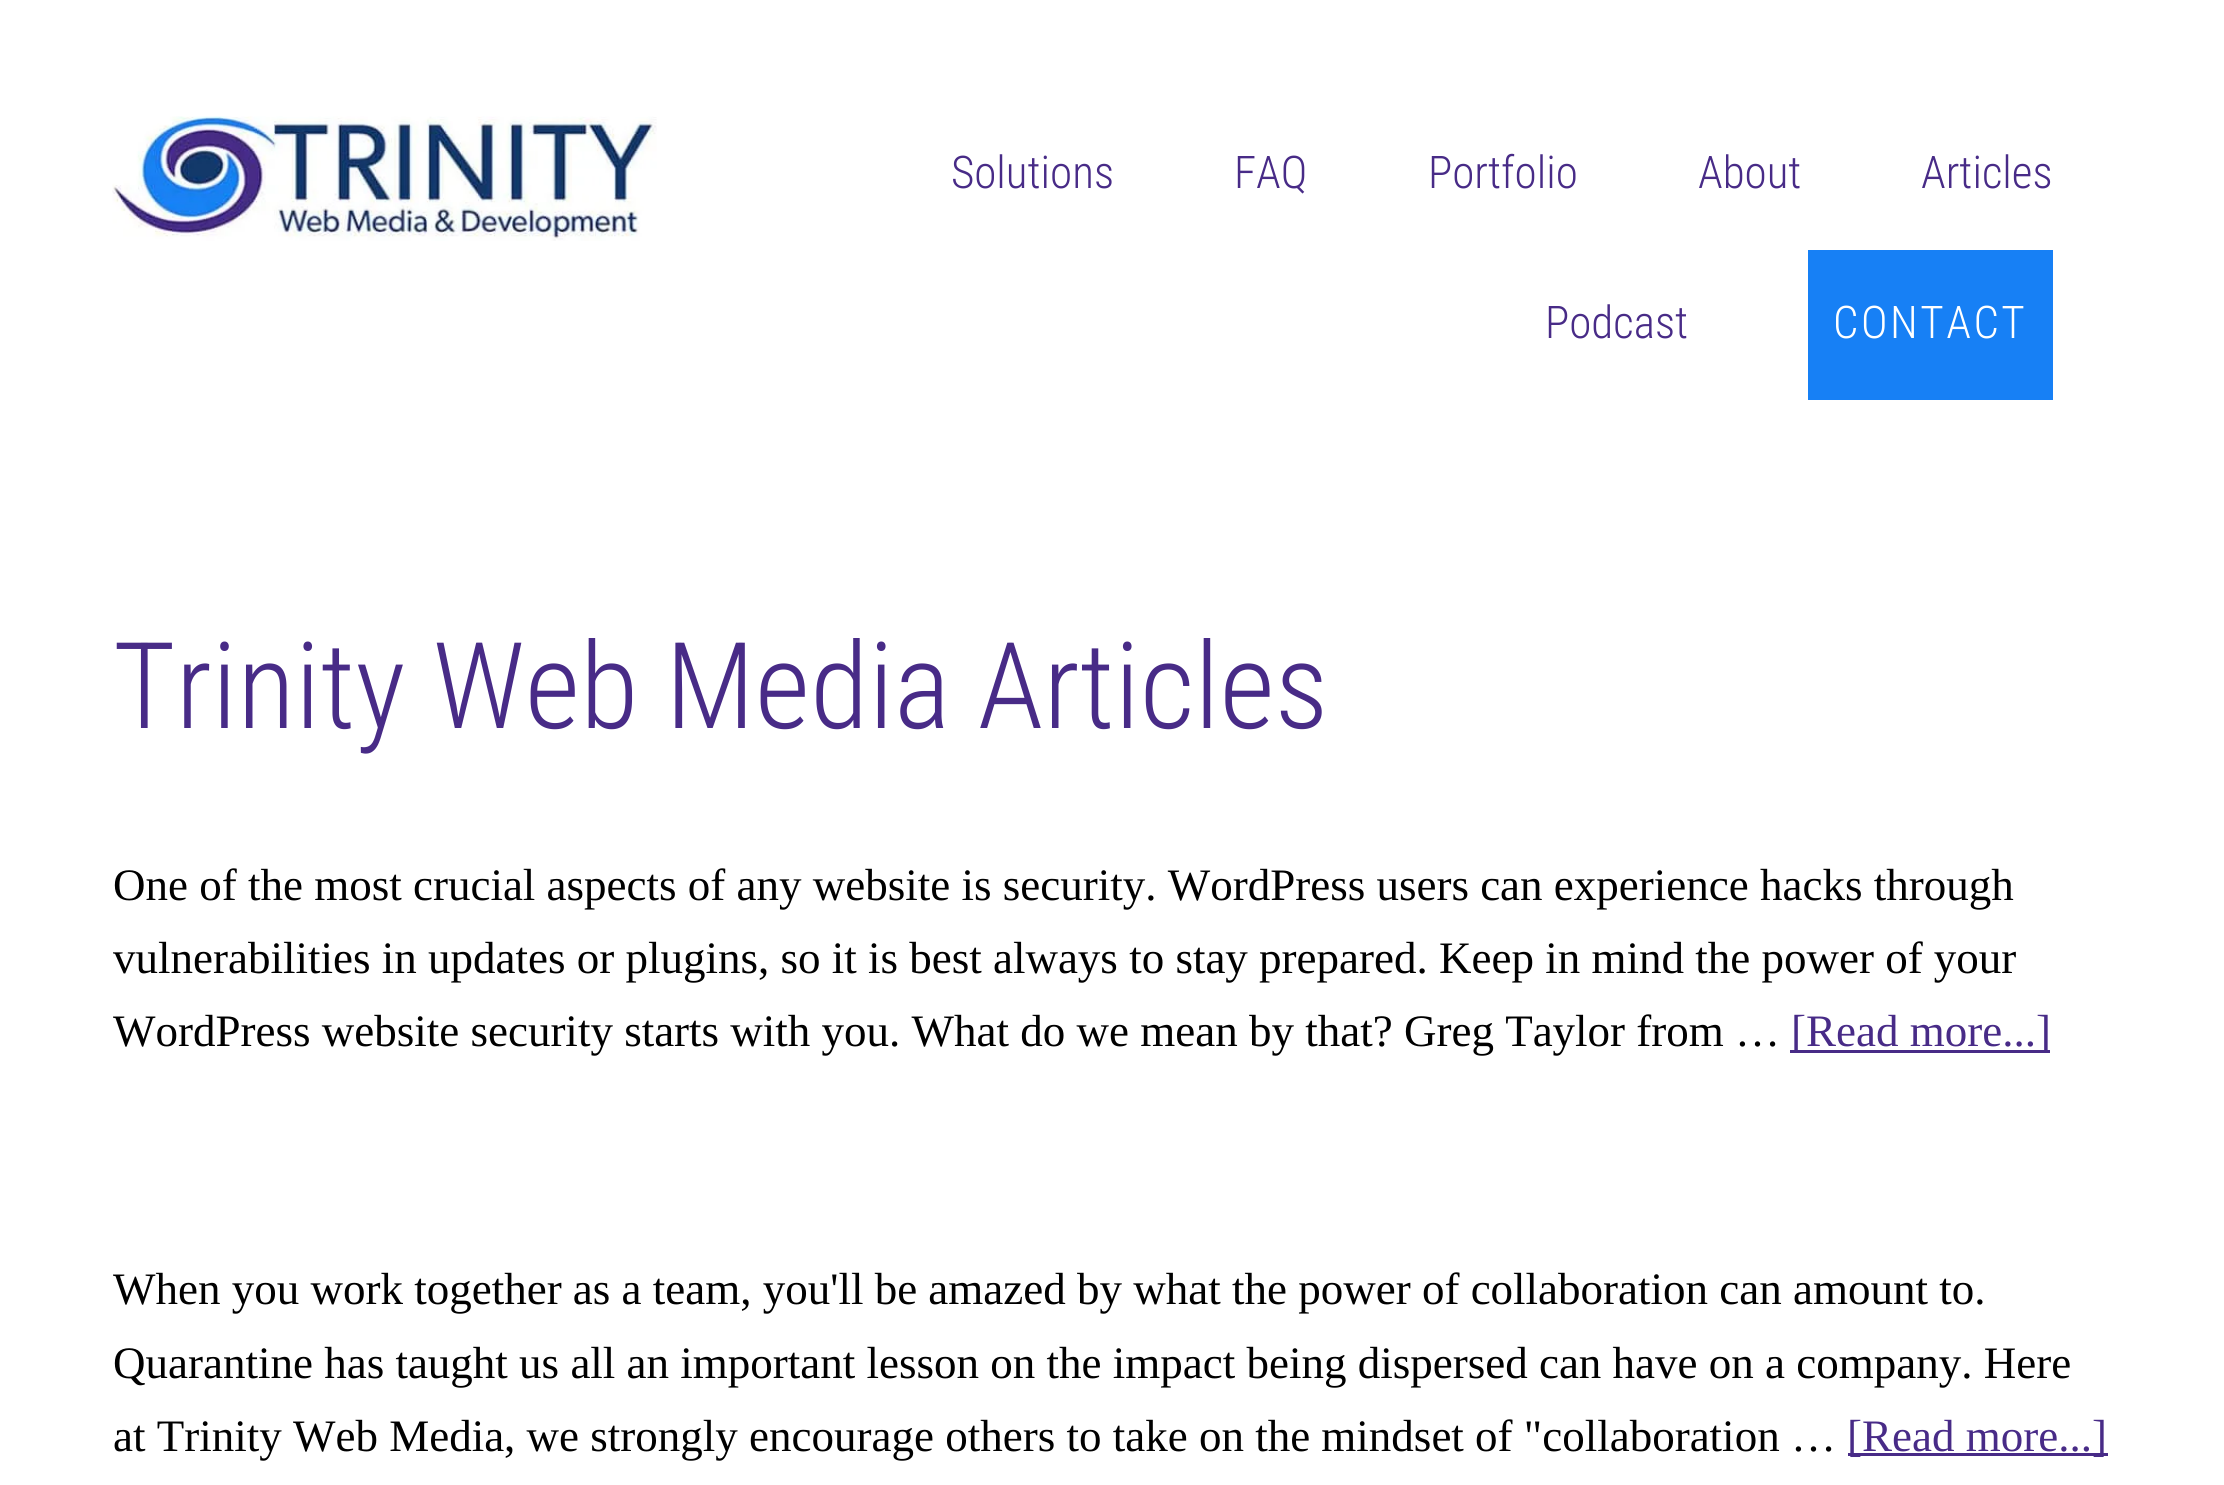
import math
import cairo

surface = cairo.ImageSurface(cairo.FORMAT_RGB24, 2224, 1485)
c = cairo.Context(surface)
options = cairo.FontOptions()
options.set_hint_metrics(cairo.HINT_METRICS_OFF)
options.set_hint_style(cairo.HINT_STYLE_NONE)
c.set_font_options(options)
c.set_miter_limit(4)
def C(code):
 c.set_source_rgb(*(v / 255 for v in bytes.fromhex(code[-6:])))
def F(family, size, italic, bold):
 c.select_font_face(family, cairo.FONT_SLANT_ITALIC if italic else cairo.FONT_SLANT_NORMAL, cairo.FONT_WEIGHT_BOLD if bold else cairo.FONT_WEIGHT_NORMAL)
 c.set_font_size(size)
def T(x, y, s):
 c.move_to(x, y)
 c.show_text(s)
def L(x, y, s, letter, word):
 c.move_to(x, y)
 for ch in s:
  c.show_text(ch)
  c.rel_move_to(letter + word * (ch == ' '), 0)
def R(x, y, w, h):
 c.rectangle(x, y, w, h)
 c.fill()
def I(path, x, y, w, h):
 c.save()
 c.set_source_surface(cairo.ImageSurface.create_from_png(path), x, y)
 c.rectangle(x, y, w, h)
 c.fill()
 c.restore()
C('ffffff')
c.paint()
I('1.png',112,116,545,125)
F('Roboto Condensed Light',45,0,0)
C('482b87')
T(951,188,'Solutions')
T(1234,188,'FAQ')
T(1428,188,'Portfolio')
T(1698,188,'About')
T(1921,188,'Articles')
T(1545,338,'Podcast')
C('1780f5')
R(1808,250,245,150)
C('ffffff')
L(1833,338,'CONTACT',2.5,0)
F('Roboto Condensed Light',120,0,0)
C('482b87')
T(113,728,'Trinity Web Media Articles')
F('Liberation Serif',45,0,0)
C('000000')
T(113,900,'One of the most crucial aspects of any website is security. WordPress users can experience hacks through')
T(113,973,'vulnerabilities in updates or plugins, so it is best always to stay prepared. Keep in mind the power of your')
T(113,1046,'WordPress website security starts with you. What do we mean by that? Greg Taylor from …')
C('482b87')
R(1790,1050,260,3)
T(1791,1046,'[Read more...]')
C('000000')
T(113,1304,'When you work together as a team, you\'ll be amazed by what the power of collaboration can amount to.')
T(113,1378,'Quarantine has taught us all an important lesson on the impact being dispersed can have on a company. Here')
T(113,1451,'at Trinity Web Media, we strongly encourage others to take on the mindset of "collaboration …')
C('482b87')
R(1848,1453,260,3)
T(1847,1451,'[Read more...]')
surface.write_to_png('o.png')
